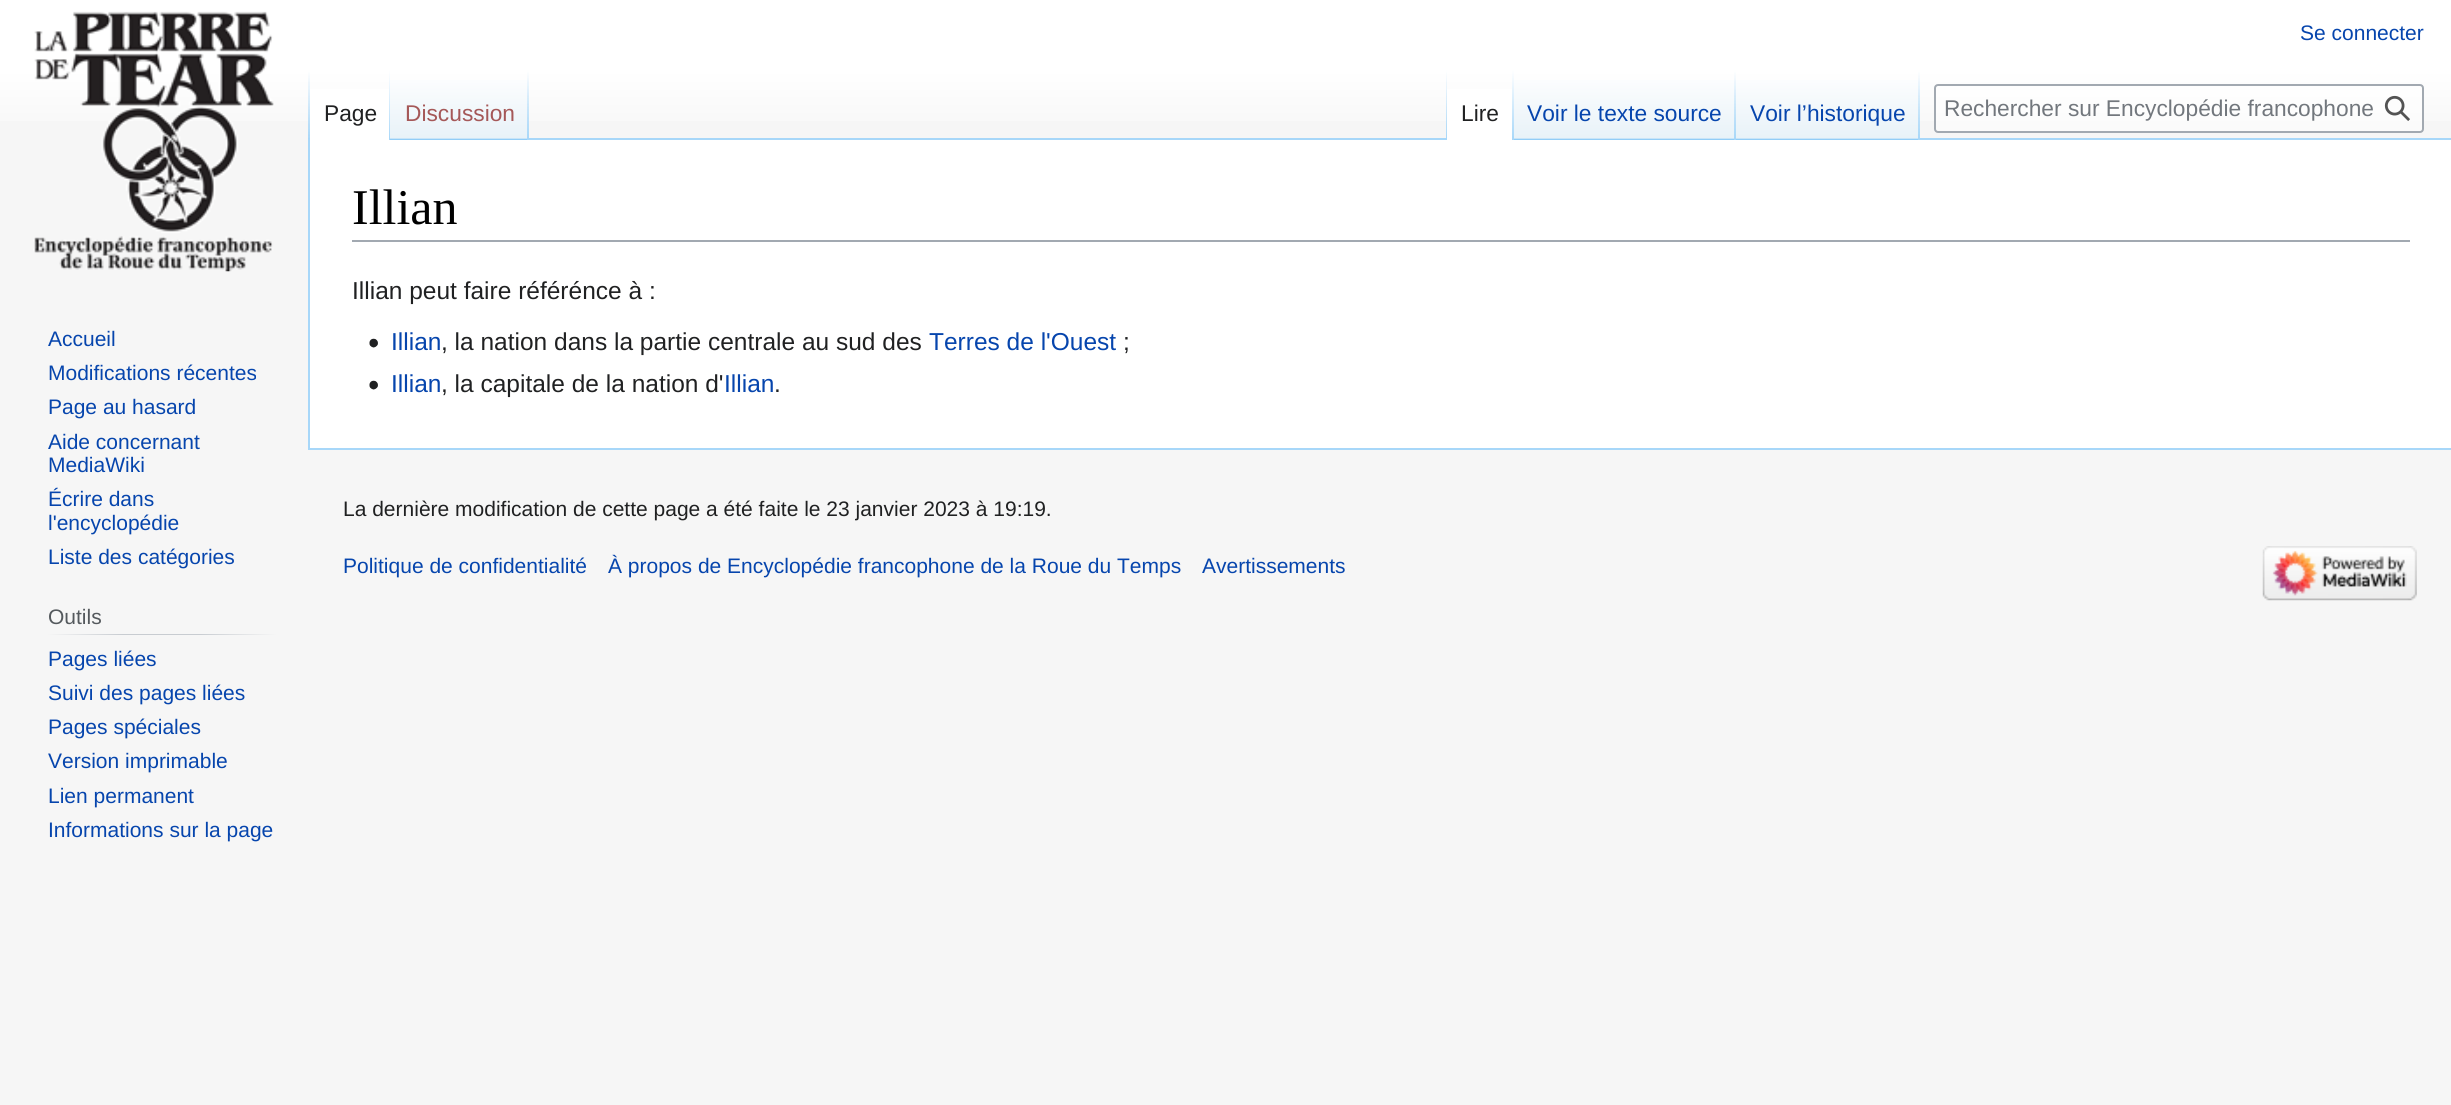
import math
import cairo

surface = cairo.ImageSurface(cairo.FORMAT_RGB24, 2451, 1105)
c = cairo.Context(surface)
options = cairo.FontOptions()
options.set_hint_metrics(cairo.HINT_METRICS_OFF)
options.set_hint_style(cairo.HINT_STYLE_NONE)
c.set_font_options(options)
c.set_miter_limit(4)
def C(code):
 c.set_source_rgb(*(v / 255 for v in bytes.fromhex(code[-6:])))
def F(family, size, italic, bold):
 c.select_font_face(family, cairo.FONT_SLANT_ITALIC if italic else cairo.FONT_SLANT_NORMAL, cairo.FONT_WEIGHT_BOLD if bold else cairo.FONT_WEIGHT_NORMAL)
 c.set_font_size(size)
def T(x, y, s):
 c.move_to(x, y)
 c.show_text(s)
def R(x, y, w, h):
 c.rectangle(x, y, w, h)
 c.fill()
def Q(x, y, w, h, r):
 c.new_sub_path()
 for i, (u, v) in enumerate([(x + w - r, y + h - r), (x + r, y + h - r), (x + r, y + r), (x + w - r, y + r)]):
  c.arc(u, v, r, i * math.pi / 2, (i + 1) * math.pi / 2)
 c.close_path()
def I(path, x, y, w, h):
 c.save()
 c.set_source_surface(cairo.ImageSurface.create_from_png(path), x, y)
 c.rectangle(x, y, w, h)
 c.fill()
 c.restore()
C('f6f6f6')
c.paint()
gradient = cairo.LinearGradient(1226,0,1226,140)
gradient.add_color_stop_rgba(.5,1,1,1,1)
gradient.add_color_stop_rgba(1,0.965,0.965,0.965,1)
c.set_source(gradient)
R(0,0,2451,121)
F('Liberation Sans',21,0,0)
C('0645ad')
T(2300,40,'Se connecter')
C('a7d7f9')
R(308,448,2143,2)
R(308,138,2,312)
gradient = cairo.LinearGradient(309,70,309,140)
gradient.add_color_stop_rgba(0,0.655,0.843,0.976,0)
gradient.add_color_stop_rgba(1,0.655,0.843,0.976,1)
c.set_source(gradient)
R(308,70,2,70)
C('ffffff')
R(310,89,79,51)
gradient = cairo.LinearGradient(389,70,389,140)
gradient.add_color_stop_rgba(0,1,1,1,1)
gradient.add_color_stop_rgba(1,0.655,0.843,0.976,1)
c.set_source(gradient)
R(389,70,1,70)
F('Liberation Sans',22.75,0,0)
C('202122')
T(324,121,'Page')
gradient = cairo.LinearGradient(459,140,459,70)
gradient.add_color_stop_rgba(0,0.467,0.757,0.965,1)
gradient.add_color_stop_rgba(.03,0.91,0.949,0.973,1)
gradient.add_color_stop_rgba(1,1,1,1,1)
c.set_source(gradient)
R(390,80,139,60)
gradient = cairo.LinearGradient(528,70,528,140)
gradient.add_color_stop_rgba(0,0.655,0.843,0.976,0)
gradient.add_color_stop_rgba(1,0.655,0.843,0.976,1)
c.set_source(gradient)
R(527,70,2,70)
C('a55858')
T(405,121,'Discussion')
C('a7d7f9')
R(529,138,1922,2)
gradient = cairo.LinearGradient(1446,70,1446,140)
gradient.add_color_stop_rgba(0,0.655,0.843,0.976,0)
gradient.add_color_stop_rgba(1,0.655,0.843,0.976,1)
c.set_source(gradient)
R(1446,70,1,70)
C('ffffff')
R(1447,89,65,51)
gradient = cairo.LinearGradient(1513,70,1513,140)
gradient.add_color_stop_rgba(0,1,1,1,1)
gradient.add_color_stop_rgba(1,0.655,0.843,0.976,1)
c.set_source(gradient)
R(1512,70,2,70)
C('202122')
T(1461,121,'Lire')
gradient = cairo.LinearGradient(1625,140,1625,70)
gradient.add_color_stop_rgba(0,0.467,0.757,0.965,1)
gradient.add_color_stop_rgba(.03,0.91,0.949,0.973,1)
gradient.add_color_stop_rgba(1,1,1,1,1)
c.set_source(gradient)
R(1514,80,222,60)
gradient = cairo.LinearGradient(1735,70,1735,140)
gradient.add_color_stop_rgba(0,0.655,0.843,0.976,0)
gradient.add_color_stop_rgba(1,0.655,0.843,0.976,1)
c.set_source(gradient)
R(1734,70,2,70)
C('0645ad')
T(1527,121,'Voir le texte source')
gradient = cairo.LinearGradient(1828,140,1828,70)
gradient.add_color_stop_rgba(0,0.467,0.757,0.965,1)
gradient.add_color_stop_rgba(.03,0.91,0.949,0.973,1)
gradient.add_color_stop_rgba(1,1,1,1,1)
c.set_source(gradient)
R(1736,80,184,60)
gradient = cairo.LinearGradient(1919,70,1919,140)
gradient.add_color_stop_rgba(0,0.655,0.843,0.976,0)
gradient.add_color_stop_rgba(1,0.655,0.843,0.976,1)
c.set_source(gradient)
R(1918,70,2,70)
C('0645ad')
T(1750,121,'Voir l’historique')
c.set_source_rgba(1,1,1,0.5)
Q(1935,85,488,47,3)
c.fill_preserve()
C('a2a9b1')
c.stroke()
c.save()
c.rectangle(1944,96,429,27)
c.clip()
C('72777d')
T(1944,116,'Rechercher sur Encyclopédie francophone')
c.restore()
I('1.png',2384,95,26,26)
I('2.png',33,11,241,261)
F('Liberation Sans',21,0,0)
C('0645ad')
T(48,346,'Accueil')
T(48,380,'Modifications récentes')
T(48,414,'Page au hasard')
T(48,449,'Aide concernant')
T(48,472,'MediaWiki')
T(48,506,'Écrire dans')
T(48,530,'l\'encyclopédie')
T(48,564,'Liste des catégories')
gradient = cairo.LinearGradient(47,634,277,634)
gradient.add_color_stop_rgba(0,0.965,0.965,0.965,1)
gradient.add_color_stop_rgba(.33,0.784,0.8,0.82,1)
gradient.add_color_stop_rgba(.66,0.784,0.8,0.82,1)
gradient.add_color_stop_rgba(1,0.965,0.965,0.965,1)
c.set_source(gradient)
R(47,634,230,1)
C('54595d')
T(48,624,'Outils')
C('0645ad')
T(48,666,'Pages liées')
T(48,700,'Suivi des pages liées')
T(48,734,'Pages spéciales')
T(48,768,'Version imprimable')
T(48,803,'Lien permanent')
T(48,837,'Informations sur la page')
C('ffffff')
R(310,140,2141,308)
C('a2a9b1')
R(352,240,2058,2)
F('Liberation Serif',50,0,0)
C('000000')
T(352,224,'Illian')
F('Liberation Sans',24.5,0,0)
C('202122')
T(352,299,'Illian peut faire référénce à :')
I('3.png',369,338,9,10)
C('0645ad')
T(391,350,'Illian')
C('202122')
T(441,350,', la nation dans la partie centrale au sud des')
C('0645ad')
T(929,350,'Terres de l\'Ouest')
C('202122')
T(1123,350,';')
I('3.png',369,380,9,10)
C('0645ad')
T(391,392,'Illian')
C('202122')
T(441,392,', la capitale de la nation d\'')
C('0645ad')
T(724,392,'Illian')
C('202122')
T(774,392,'.')
F('Liberation Sans',21,0,0)
T(343,516,'La dernière modification de cette page a été faite le 23 janvier 2023 à 19:19.')
C('0645ad')
T(343,573,'Politique de confidentialité')
T(608,573,'À propos de Encyclopédie francophone de la Roue du Temps')
T(1202,573,'Avertissements')
I('4.png',2262,546,155,55)
surface.write_to_png('o.png')
